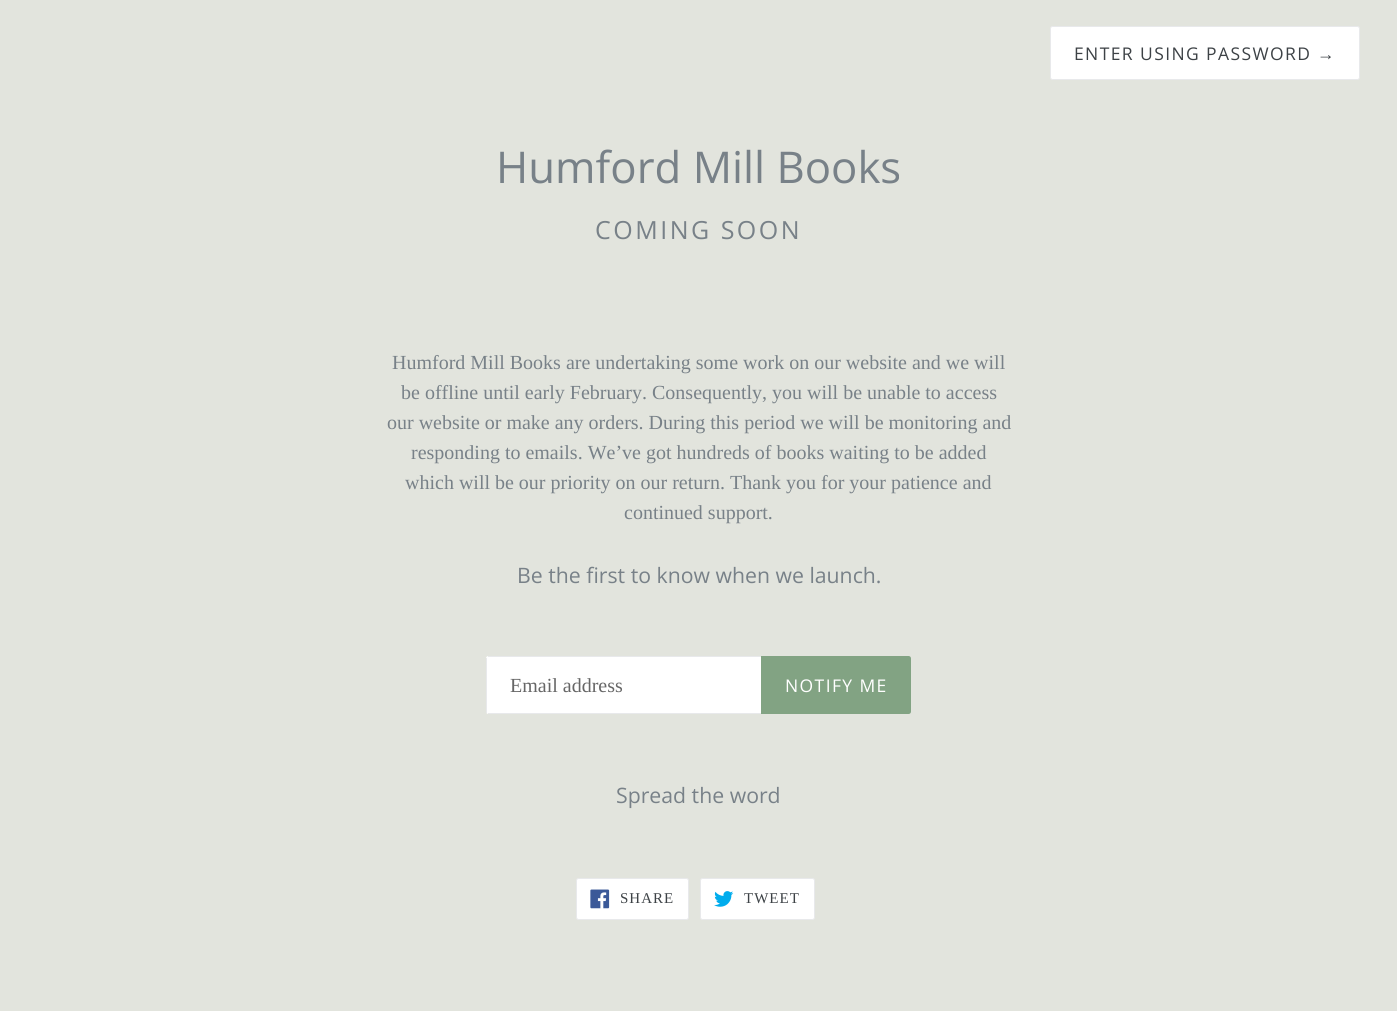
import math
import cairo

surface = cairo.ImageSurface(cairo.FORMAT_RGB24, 1397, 1011)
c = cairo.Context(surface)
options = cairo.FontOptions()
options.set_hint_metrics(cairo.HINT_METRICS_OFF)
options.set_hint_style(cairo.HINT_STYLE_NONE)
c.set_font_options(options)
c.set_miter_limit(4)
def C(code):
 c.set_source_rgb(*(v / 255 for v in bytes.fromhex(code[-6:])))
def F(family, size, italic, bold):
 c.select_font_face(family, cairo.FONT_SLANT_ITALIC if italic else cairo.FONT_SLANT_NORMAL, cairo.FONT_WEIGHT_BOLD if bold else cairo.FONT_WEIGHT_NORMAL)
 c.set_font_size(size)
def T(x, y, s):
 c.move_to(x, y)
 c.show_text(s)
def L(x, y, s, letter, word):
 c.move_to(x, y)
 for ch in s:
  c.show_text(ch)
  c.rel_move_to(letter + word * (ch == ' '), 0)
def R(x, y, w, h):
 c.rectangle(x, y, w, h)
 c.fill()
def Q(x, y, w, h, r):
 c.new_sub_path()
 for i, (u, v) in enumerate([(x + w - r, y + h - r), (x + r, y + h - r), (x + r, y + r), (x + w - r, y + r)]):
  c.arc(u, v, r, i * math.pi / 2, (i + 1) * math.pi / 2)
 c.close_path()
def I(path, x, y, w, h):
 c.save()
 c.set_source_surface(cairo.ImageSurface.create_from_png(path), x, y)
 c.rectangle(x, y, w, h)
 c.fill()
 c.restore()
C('e2e4dd')
c.paint()
C('ffffff')
Q(1050.5,26.5,309,53,2)
c.fill_preserve()
C('e8e9eb')
c.set_line_width(1)
c.stroke()
F('Open Sans',17.5,0,0)
C('3d4246')
L(1074,60,'ENTER USING PASSWORD',1.4,0)
F('Liberation Sans',17.5,0,0)
L(1317,60,'→',1.4,0)
F('Open Sans',43.75,0,0)
C('788188')
T(496,183,'Humford Mill Books')
F('Open Sans',25,0,0)
L(595,239,'COMING SOON',2.5,0)
F('Liberation Serif',20,0,0)
T(392,369,'Humford Mill Books are undertaking some work on our website and we will')
T(401,399,'be offline until early February. Consequently, you will be unable to access')
T(387,429,'our website or make any orders. During this period we will be monitoring and')
T(411,459,'responding to emails. We’ve got hundreds of books waiting to be added')
T(405,489,'which will be our priority on our return. Thank you for your patience and')
T(624,519,'continued support.')
F('Open Sans',21.25,0,0)
T(517,583,'Be the first to know when we launch.')
C('ffffff')
c.new_path()
c.move_to(488.5,656)
c.line_to(761,656)
c.line_to(761,714)
c.line_to(488.5,714)
c.curve_to(487,714,486,713,486,711.5)
c.line_to(486,658.5)
c.curve_to(486,657,487,656,488.5,656)
c.close_path()
c.fill()
C('e8e9eb')
R(488,656,273,1)
R(488,713,273,1)
R(486,658,1,55)
F('Liberation Serif',20,0,0)
C('666666')
T(510,692,'Email address')
C('82a383')
c.new_path()
c.move_to(761,656)
c.line_to(908.5,656)
c.curve_to(910,656,911,657,911,658.5)
c.line_to(911,711.5)
c.curve_to(911,713,910,714,908.5,714)
c.line_to(761,714)
c.close_path()
c.fill()
F('Open Sans',17.5,0,0)
C('ffffff')
L(785,692,'NOTIFY ME',1.4,0)
F('Open Sans',21.25,0,0)
C('788188')
T(616,803,'Spread the word')
C('ffffff')
Q(576.5,878.5,112,41,2)
c.fill_preserve()
C('e8e9eb')
c.stroke()
I('1.png',590,889,20,20)
F('Liberation Serif',15,0,0)
C('3d4246')
L(620,903,'SHARE',1,0)
C('ffffff')
Q(700.5,878.5,114,41,2)
c.fill_preserve()
C('e8e9eb')
c.stroke()
I('2.png',714,891,20,16)
C('3d4246')
L(744,903,'TWEET',1,0)
surface.write_to_png('o.png')
